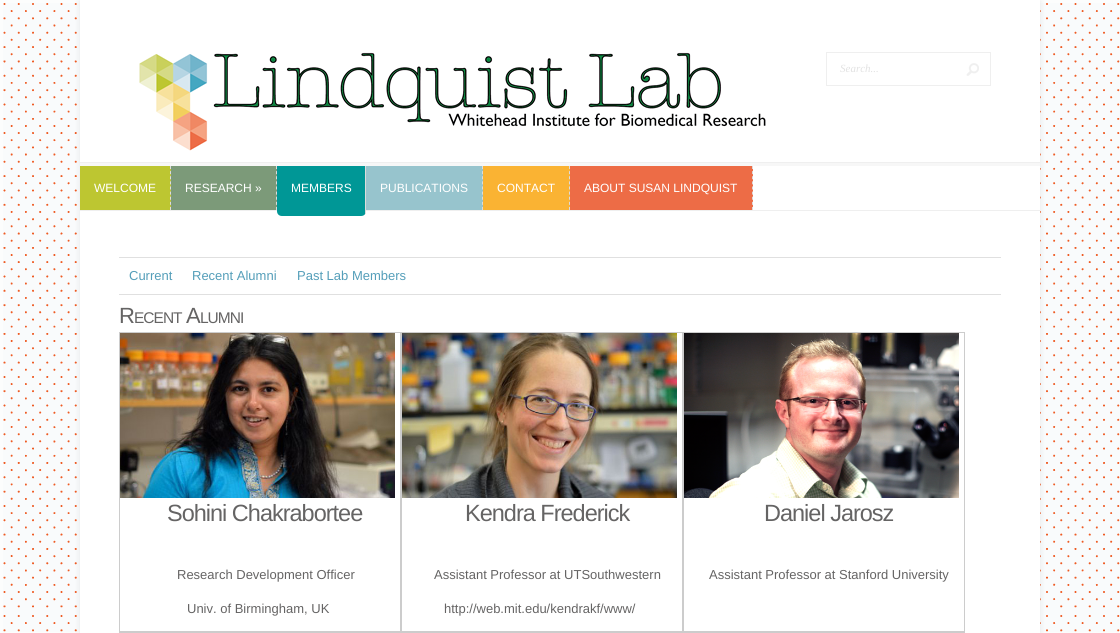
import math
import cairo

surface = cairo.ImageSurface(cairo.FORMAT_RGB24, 1120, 633)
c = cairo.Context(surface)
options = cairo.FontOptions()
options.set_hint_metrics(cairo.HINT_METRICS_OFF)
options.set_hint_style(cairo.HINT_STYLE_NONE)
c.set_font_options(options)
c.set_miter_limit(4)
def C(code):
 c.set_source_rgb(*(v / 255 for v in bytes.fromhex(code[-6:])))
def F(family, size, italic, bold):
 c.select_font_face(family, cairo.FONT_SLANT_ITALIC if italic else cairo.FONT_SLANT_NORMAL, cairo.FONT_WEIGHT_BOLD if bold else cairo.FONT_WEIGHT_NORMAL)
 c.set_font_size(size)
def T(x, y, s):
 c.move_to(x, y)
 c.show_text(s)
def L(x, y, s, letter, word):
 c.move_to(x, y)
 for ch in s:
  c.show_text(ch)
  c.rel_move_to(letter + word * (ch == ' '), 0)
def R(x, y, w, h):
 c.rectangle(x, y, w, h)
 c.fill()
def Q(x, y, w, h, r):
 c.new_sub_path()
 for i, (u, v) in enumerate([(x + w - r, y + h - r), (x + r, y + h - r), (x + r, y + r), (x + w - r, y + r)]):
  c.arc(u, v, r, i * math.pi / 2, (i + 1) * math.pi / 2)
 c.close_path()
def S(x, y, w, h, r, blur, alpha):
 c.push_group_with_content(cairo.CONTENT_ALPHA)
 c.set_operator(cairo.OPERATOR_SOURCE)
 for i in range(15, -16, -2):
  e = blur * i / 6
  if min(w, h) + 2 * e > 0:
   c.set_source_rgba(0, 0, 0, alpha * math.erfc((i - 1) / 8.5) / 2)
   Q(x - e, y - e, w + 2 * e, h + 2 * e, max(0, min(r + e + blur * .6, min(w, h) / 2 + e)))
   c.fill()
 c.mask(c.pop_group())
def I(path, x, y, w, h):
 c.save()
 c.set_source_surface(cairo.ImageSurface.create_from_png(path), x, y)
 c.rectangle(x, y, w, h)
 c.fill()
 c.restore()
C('fcfdfd')
c.paint()
I('1.png',3,3,1117,629)
C('000000')
S(80,0,960,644,0,3.5,.08)
C('ffffff')
R(80,0,960,210)
C('efefef')
R(80,162,960,1)
I('2.png',139,52,627,99)
c.rectangle(826.5,52.5,164,33)
c.set_line_width(1)
c.stroke()
F('Liberation Serif',11,1,0)
C('e2e2e2')
T(840,72,'Search...')
I('3.png',966,63,13,13)
C('f7f7f7')
R(80,163,960,3)
C('efefef')
R(80,210,960,1)
C('bdc631')
R(80,166,91,44)
c.new_path()
c.move_to(170.5,166)
c.line_to(170.5,210)
C('dcdcdc')
c.set_dash([3,2.12])
c.stroke()
F('Liberation Sans',12,0,0)
C('ffffff')
T(94,192,'WELCOME')
C('7c9a79')
R(171,166,106,44)
c.new_path()
c.move_to(276.5,166)
c.line_to(276.5,210)
C('dcdcdc')
c.stroke()
C('ffffff')
T(185,192,'RESEARCH »')
R(80,211,960,422)
C('009796')
c.new_path()
c.move_to(277,166)
c.line_to(366,166)
c.line_to(366,211)
c.curve_to(366,214,364,216,361,216)
c.line_to(282,216)
c.curve_to(279,216,277,214,277,211)
c.close_path()
c.fill()
C('dcdcdc')
R(365,166,1,48)
C('ffffff')
T(291,192,'MEMBERS')
C('97c4cd')
R(366,166,117,44)
c.new_path()
c.move_to(482.5,166)
c.line_to(482.5,210)
C('dcdcdc')
c.stroke()
C('ffffff')
T(380,192,'PUBLICATIONS')
C('fab333')
R(483,166,87,44)
c.new_path()
c.move_to(569.5,166)
c.line_to(569.5,210)
C('dcdcdc')
c.stroke()
C('ffffff')
T(497,192,'CONTACT')
C('ed6c46')
R(570,166,183,44)
c.new_path()
c.move_to(752.5,166)
c.line_to(752.5,210)
C('dcdcdc')
c.stroke()
C('ffffff')
T(584,192,'ABOUT SUSAN LINDQUIST')
C('e0e0e0')
R(119,257,882,1)
R(119,294,882,1)
F('Liberation Sans',13,0,0)
C('549eb9')
T(129,280,'Current')
T(192,280,'Recent Alumni')
T(297,280,'Past Lab Members')
F('Liberation Sans',22,0,0)
C('656464')
L(119,323,'R',-1,0)
F('Liberation Sans',15.5,0,0)
L(134,323,'ECENT',-1,0)
F('Liberation Sans',22,0,0)
L(186,323,'A',-1,0)
F('Liberation Sans',15.5,0,0)
L(200,323,'LUMNI',-1,0)
c.rectangle(119.5,332.5,281,299)
C('cccccc')
c.set_dash([])
c.stroke()
I('4.png',120,333,275,165)
F('Liberation Sans',23.5,0,0)
C('656464')
L(167,521,'Sohini Chakrabortee',-1,0)
F('Liberation Sans',13,0,0)
T(177,579,'Research Development Officer')
T(187,613,'Univ. of Birmingham, UK')
c.rectangle(401.5,332.5,281,299)
C('cccccc')
c.stroke()
I('5.png',402,333,275,165)
F('Liberation Sans',23.5,0,0)
C('656464')
L(465,521,'Kendra Frederick',-1,0)
F('Liberation Sans',13,0,0)
T(434,579,'Assistant Professor at UTSouthwestern')
T(444,613,'http://web.mit.edu/kendrakf/www/')
c.rectangle(683.5,332.5,281,299)
C('cccccc')
c.stroke()
I('6.png',684,333,275,165)
F('Liberation Sans',23.5,0,0)
C('656464')
L(764,521,'Daniel Jarosz',-1,0)
F('Liberation Sans',13,0,0)
T(709,579,'Assistant Professor at Stanford University')
c.rectangle(119.5,632.5,281,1)
C('cccccc')
c.stroke()
c.rectangle(401.5,632.5,281,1)
c.stroke()
c.rectangle(683.5,632.5,281,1)
c.stroke()
surface.write_to_png('o.png')
